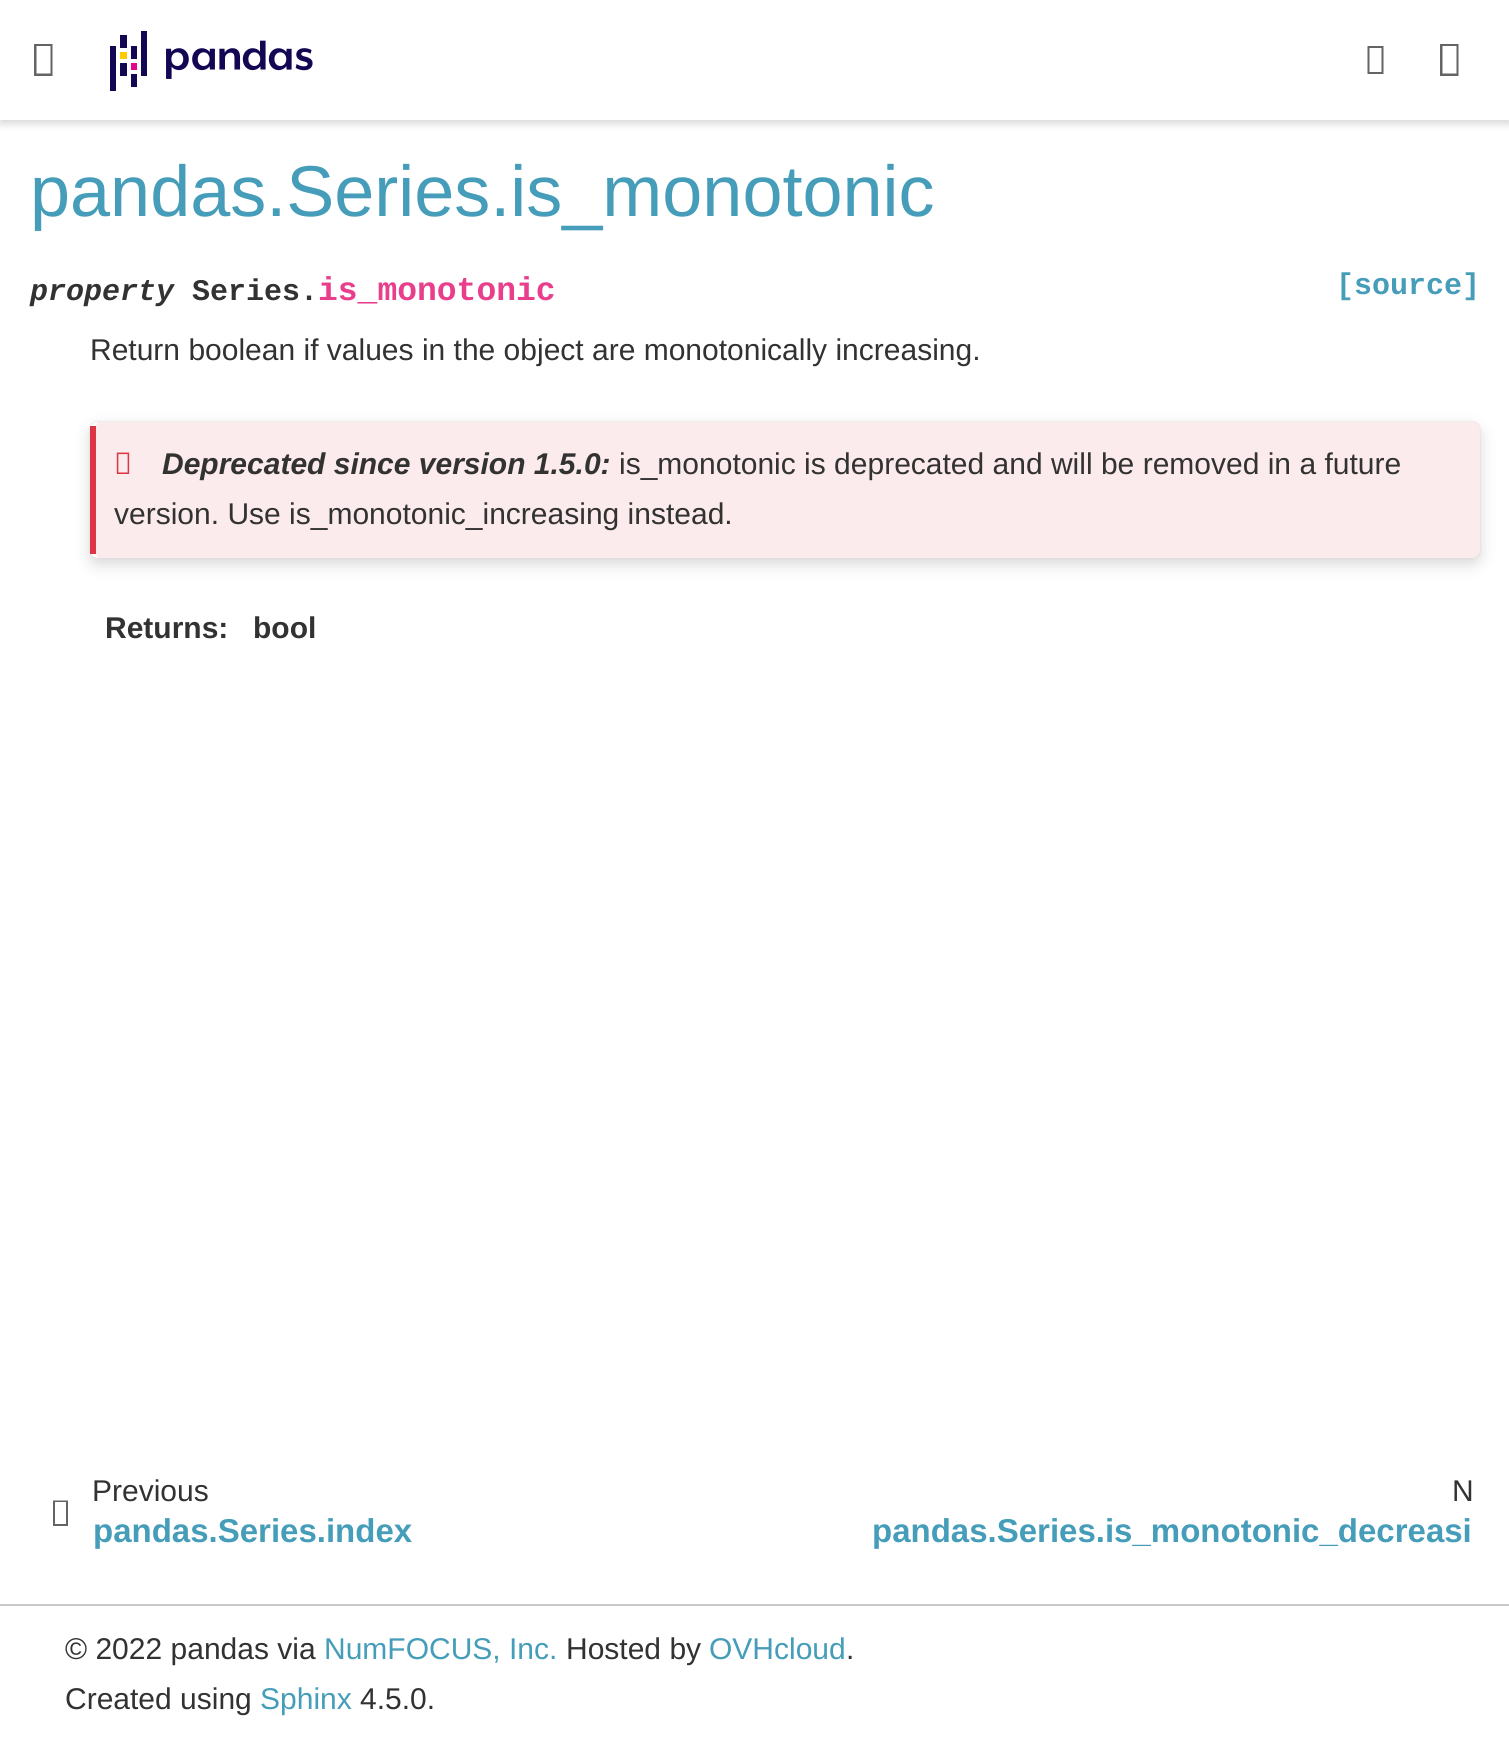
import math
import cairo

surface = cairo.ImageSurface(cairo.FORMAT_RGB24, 1509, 1743)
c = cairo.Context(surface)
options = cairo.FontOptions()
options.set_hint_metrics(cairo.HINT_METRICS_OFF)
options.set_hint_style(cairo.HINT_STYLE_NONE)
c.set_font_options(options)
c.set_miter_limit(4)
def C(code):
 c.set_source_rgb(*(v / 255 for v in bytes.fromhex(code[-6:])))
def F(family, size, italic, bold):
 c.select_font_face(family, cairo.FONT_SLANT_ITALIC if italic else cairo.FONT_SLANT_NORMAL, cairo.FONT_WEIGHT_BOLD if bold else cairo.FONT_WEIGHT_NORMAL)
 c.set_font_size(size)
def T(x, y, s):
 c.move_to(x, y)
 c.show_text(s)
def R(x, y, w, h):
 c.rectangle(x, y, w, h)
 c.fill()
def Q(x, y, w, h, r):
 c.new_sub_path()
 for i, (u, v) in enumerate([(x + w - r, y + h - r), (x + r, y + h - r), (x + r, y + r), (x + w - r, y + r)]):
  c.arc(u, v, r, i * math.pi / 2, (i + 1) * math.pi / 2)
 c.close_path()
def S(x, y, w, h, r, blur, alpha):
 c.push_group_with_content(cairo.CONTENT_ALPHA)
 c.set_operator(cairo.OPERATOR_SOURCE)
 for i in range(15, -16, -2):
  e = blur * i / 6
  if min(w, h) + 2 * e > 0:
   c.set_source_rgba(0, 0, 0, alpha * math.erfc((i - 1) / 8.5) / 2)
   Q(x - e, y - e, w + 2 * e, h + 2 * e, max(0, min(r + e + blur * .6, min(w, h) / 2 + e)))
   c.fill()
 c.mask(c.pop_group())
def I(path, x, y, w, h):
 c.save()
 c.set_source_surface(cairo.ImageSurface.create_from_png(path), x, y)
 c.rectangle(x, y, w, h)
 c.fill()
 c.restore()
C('ffffff')
c.paint()
c.save()
c.rectangle(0,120,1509,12)
c.clip()
C('d8d8d8')
S(0,4,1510,120,0,4,1)
c.restore()
C('646464')
c.new_path()
c.move_to(34,76)
c.line_to(34,44)
c.line_to(52.5,44)
c.line_to(52.5,76)
c.close_path()
c.move_to(36.5,73.5)
c.line_to(50.5,73.5)
c.line_to(50.5,46)
c.line_to(36.5,46)
c.close_path()
c.fill()
I('1.png',110,31,203,60)
c.new_path()
c.move_to(1367.5,74)
c.line_to(1367.5,46)
c.line_to(1383.5,46)
c.line_to(1383.5,74)
c.close_path()
c.move_to(1369.5,72)
c.line_to(1381.5,72)
c.line_to(1381.5,48)
c.line_to(1369.5,48)
c.close_path()
c.fill()
c.new_path()
c.move_to(1440,76)
c.line_to(1440,44)
c.line_to(1458.5,44)
c.line_to(1458.5,76)
c.close_path()
c.move_to(1442.5,73.5)
c.line_to(1456.5,73.5)
c.line_to(1456.5,46)
c.line_to(1442.5,46)
c.close_path()
c.fill()
F('Liberation Sans',72,0,0)
C('459db9')
T(30,216,'pandas.Series.is_monotonic')
F('Liberation Mono',30,1,1)
C('323232')
T(30,300,'property')
F('Liberation Mono',30,0,1)
T(192,300,'Series.')
F('Liberation Mono',33,0,1)
C('e83e8c')
T(318,300,'is_monotonic')
F('Liberation Mono',30,0,1)
C('459db9')
T(1336,294,'[source]')
F('Liberation Sans',30,0,0)
C('323232')
T(90,360,'Return boolean if values in the object are monotonically increasing.')
C('d8d8d8')
S(90,422,1390,136,8,1,1)
S(90,428,1390,136,8,7.5,1)
C('ffffff')
Q(90,422,1390,136,8)
c.fill()
C('dc3545')
R(90,426,6,128)
I('2.png',116,452,14,22)
c.set_source_rgba(0.863,0.208,0.271,0.1)
c.new_path()
c.move_to(98,422)
c.curve_to(97,422,96,425,96,430)
c.line_to(96,550)
c.curve_to(96,555,97,558,98,558)
c.line_to(1472,558)
c.curve_to(1477,558,1480,555,1480,550)
c.line_to(1480,430)
c.curve_to(1480,425,1477,422,1472,422)
c.close_path()
c.fill()
F('Liberation Sans',30,1,1)
C('323232')
T(162,474,'Deprecated since version 1.5.0:')
F('Liberation Sans',30,0,0)
T(619,474,'is_monotonic is deprecated and will be removed in a future')
T(114,524,'version. Use is_monotonic_increasing instead.')
F('Liberation Sans',30,0,1)
T(105,638,'Returns:')
T(253,638,'bool')
C('646464')
c.new_path()
c.move_to(53,1526)
c.line_to(53,1500.5)
c.line_to(68,1500.5)
c.line_to(68,1526)
c.close_path()
c.move_to(55,1524)
c.line_to(66,1524)
c.line_to(66,1502)
c.line_to(55,1502)
c.close_path()
c.fill()
F('Liberation Sans',30,0,0)
C('323232')
T(92,1501,'Previous')
F('Liberation Sans',33,0,1)
C('459db9')
T(93,1542,'pandas.Series.index')
F('Liberation Sans',30,0,0)
C('323232')
T(1452,1501,'N')
F('Liberation Sans',33,0,1)
C('459db9')
T(872,1542,'pandas.Series.is_monotonic_decreasi')
C('c9c9c9')
R(0,1604,1509,2)
F('Liberation Sans',30,0,0)
C('323232')
T(65,1659,'© 2022 pandas via')
C('459db9')
T(324,1659,'NumFOCUS, Inc.')
C('323232')
T(566,1659,'Hosted by')
C('459db9')
T(709,1659,'OVHcloud')
C('323232')
T(846,1659,'.')
T(65,1709,'Created using')
C('459db9')
T(260,1709,'Sphinx')
C('323232')
T(360,1709,'4.5.0.')
surface.write_to_png('o.png')
